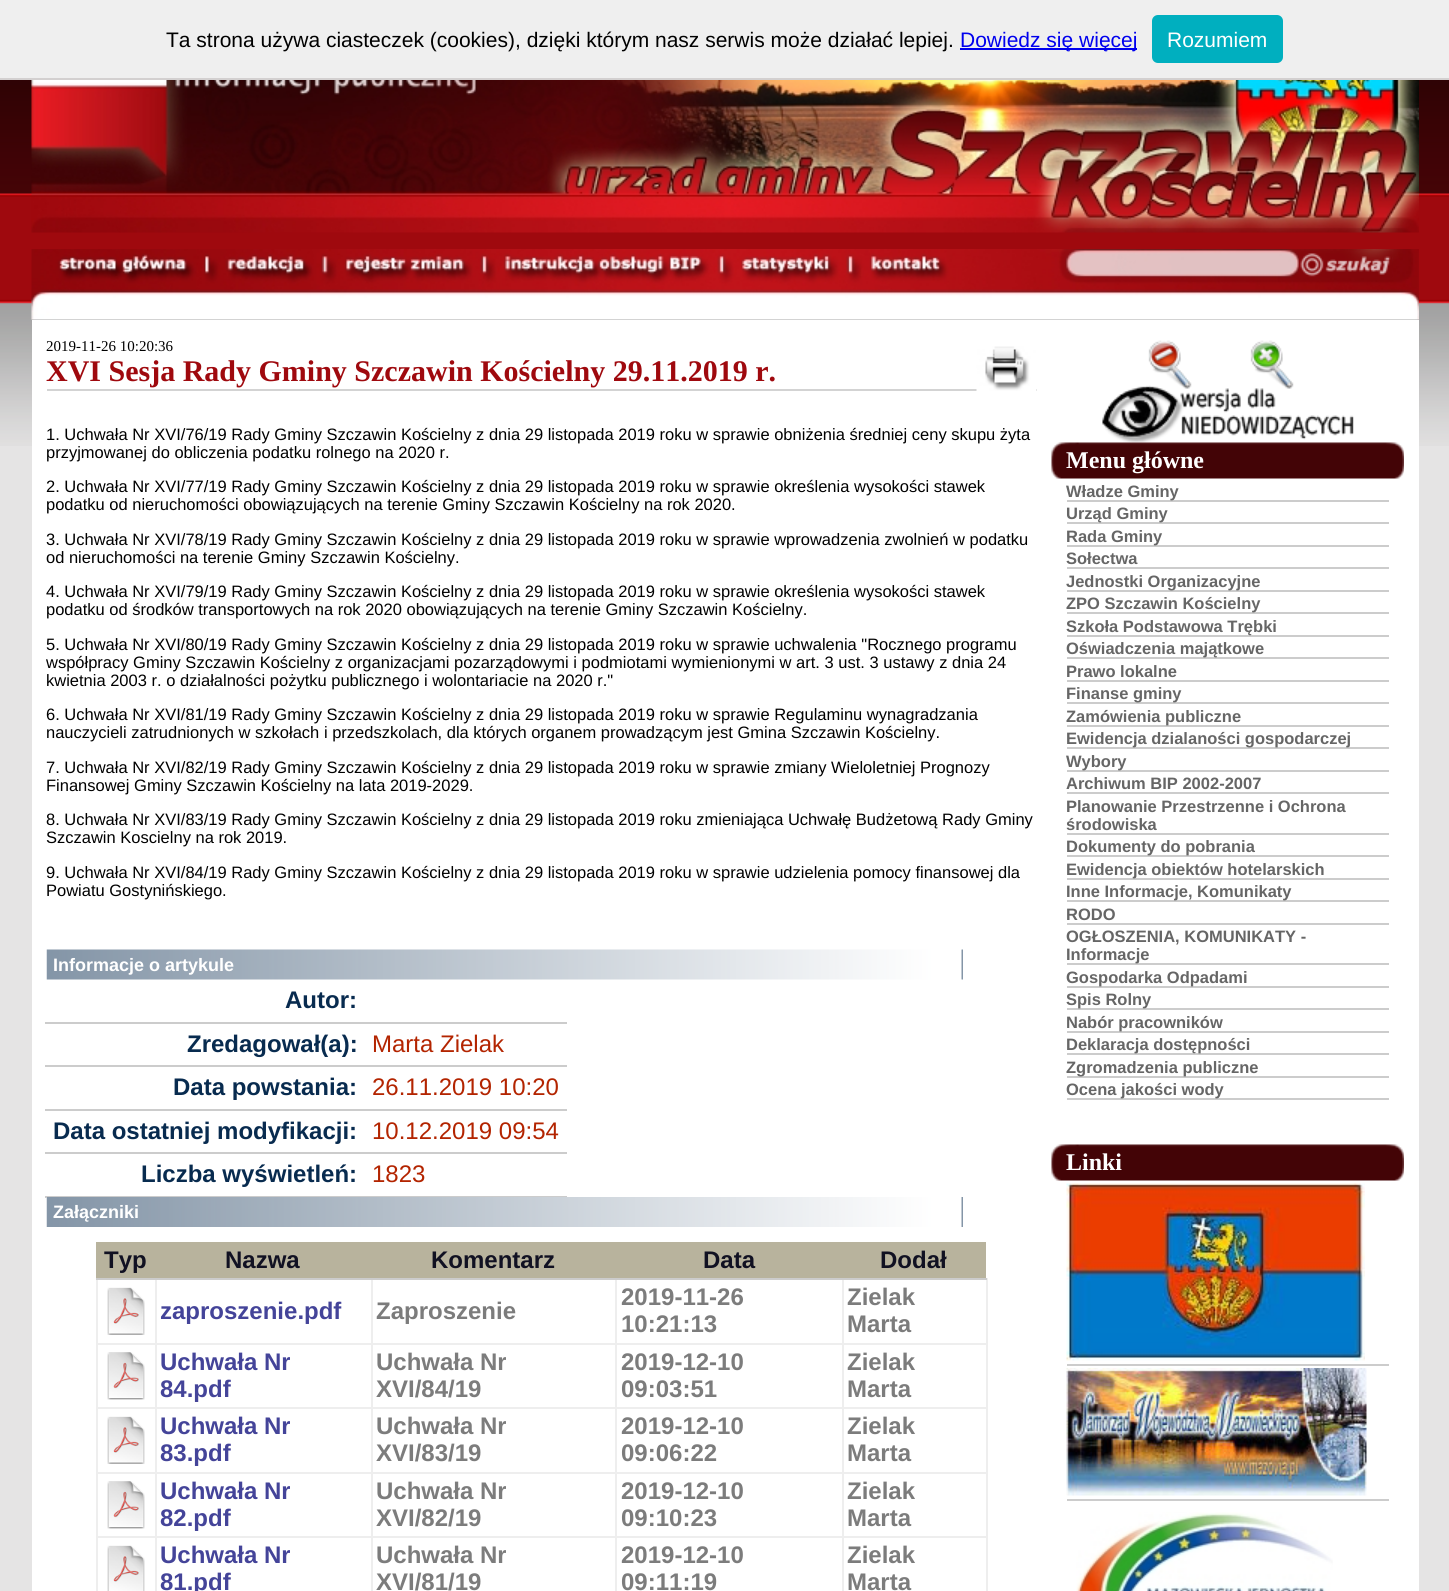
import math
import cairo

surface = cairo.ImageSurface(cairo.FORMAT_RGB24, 1449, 1591)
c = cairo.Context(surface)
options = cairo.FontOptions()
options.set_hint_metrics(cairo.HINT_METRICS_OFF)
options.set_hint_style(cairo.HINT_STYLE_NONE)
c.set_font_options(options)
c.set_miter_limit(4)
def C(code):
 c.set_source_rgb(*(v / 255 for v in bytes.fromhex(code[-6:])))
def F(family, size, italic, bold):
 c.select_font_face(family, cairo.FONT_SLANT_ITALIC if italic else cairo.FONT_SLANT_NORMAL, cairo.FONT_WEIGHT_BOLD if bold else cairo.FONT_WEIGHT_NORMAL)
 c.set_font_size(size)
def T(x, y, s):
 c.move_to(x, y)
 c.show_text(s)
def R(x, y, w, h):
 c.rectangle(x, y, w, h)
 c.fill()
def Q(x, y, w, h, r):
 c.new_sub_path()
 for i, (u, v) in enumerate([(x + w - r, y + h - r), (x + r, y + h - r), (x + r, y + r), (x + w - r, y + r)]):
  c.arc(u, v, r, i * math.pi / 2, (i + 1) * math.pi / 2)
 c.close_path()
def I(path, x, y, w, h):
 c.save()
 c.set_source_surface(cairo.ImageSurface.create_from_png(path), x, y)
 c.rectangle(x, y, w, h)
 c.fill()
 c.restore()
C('e5e4e4')
c.paint()
I('1.png',0,80,1449,366)
C('efefef')
R(0,0,1449,78)
C('d3d0d0')
R(0,78,1449,2)
F('Liberation Sans',21,0,0)
C('000000')
T(166,47,'Ta strona używa ciasteczek (cookies), dzięki którym nasz serwis może działać lepiej.')
C('0000ee')
R(960,48,177,2)
T(960,47,'Dowiedz się więcej')
C('00afbf')
Q(1152,15,131,48,6)
c.fill()
C('ffffff')
T(1167,47,'Rozumiem')
I('2.png',31,80,1388,153)
I('3.png',31,249,1388,71)
I('4.png',1299,251,93,27)
R(32,320,1387,1271)
F('Liberation Serif',15,0,0)
C('000000')
T(46,351,'2019-11-26 10:20:36')
C('d3d3d3')
R(47,389,990,2)
I('5.png',976,346,61,45)
F('Liberation Serif',30,0,1)
C('9f090e')
T(46,381,'XVI Sesja Rady Gminy Szczawin Kościelny 29.11.2019 r.')
F('Liberation Sans',16.5,0,0)
C('000000')
T(46,440,'1. Uchwała Nr XVI/76/19 Rady Gminy Szczawin Kościelny z dnia 29 listopada 2019 roku w sprawie obniżenia średniej ceny skupu żyta')
T(46,458,'przyjmowanej do obliczenia podatku rolnego na 2020 r.')
T(46,492,'2. Uchwała Nr XVI/77/19 Rady Gminy Szczawin Kościelny z dnia 29 listopada 2019 roku w sprawie określenia wysokości stawek')
T(46,510,'podatku od nieruchomości obowiązujących na terenie Gminy Szczawin Kościelny na rok 2020.')
T(46,545,'3. Uchwała Nr XVI/78/19 Rady Gminy Szczawin Kościelny z dnia 29 listopada 2019 roku w sprawie wprowadzenia zwolnień w podatku')
T(46,563,'od nieruchomości na terenie Gminy Szczawin Kościelny.')
T(46,597,'4. Uchwała Nr XVI/79/19 Rady Gminy Szczawin Kościelny z dnia 29 listopada 2019 roku w sprawie określenia wysokości stawek')
T(46,615,'podatku od środków transportowych na rok 2020 obowiązujących na terenie Gminy Szczawin Kościelny.')
T(46,650,'5. Uchwała Nr XVI/80/19 Rady Gminy Szczawin Kościelny z dnia 29 listopada 2019 roku w sprawie uchwalenia "Rocznego programu')
T(46,668,'współpracy Gminy Szczawin Kościelny z organizacjami pozarządowymi i podmiotami wymienionymi w art. 3 ust. 3 ustawy z dnia 24')
T(46,686,'kwietnia 2003 r. o działalności pożytku publicznego i wolontariacie na 2020 r."')
T(46,720,'6. Uchwała Nr XVI/81/19 Rady Gminy Szczawin Kościelny z dnia 29 listopada 2019 roku w sprawie Regulaminu wynagradzania')
T(46,738,'nauczycieli zatrudnionych w szkołach i przedszkolach, dla których organem prowadzącym jest Gmina Szczawin Kościelny.')
T(46,773,'7. Uchwała Nr XVI/82/19 Rady Gminy Szczawin Kościelny z dnia 29 listopada 2019 roku w sprawie zmiany Wieloletniej Prognozy')
T(46,791,'Finansowej Gminy Szczawin Kościelny na lata 2019-2029.')
T(46,825,'8. Uchwała Nr XVI/83/19 Rady Gminy Szczawin Kościelny z dnia 29 listopada 2019 roku zmieniająca Uchwałę Budżetową Rady Gminy')
T(46,843,'Szczawin Koscielny na rok 2019.')
T(46,878,'9. Uchwała Nr XVI/84/19 Rady Gminy Szczawin Kościelny z dnia 29 listopada 2019 roku w sprawie udzielenia pomocy finansowej dla')
T(46,896,'Powiatu Gostynińskiego.')
I('6.png',46,949,917,31)
F('Liberation Sans',18,0,1)
C('ffffff')
T(53,971,'Informacje o artykule')
F('Liberation Sans',24,0,1)
C('082b4f')
T(285,1008,'Autor:')
C('cccccc')
R(45,1022,522,2)
C('082b4f')
T(187,1052,'Zredagował(a):')
C('cccccc')
R(45,1065,522,2)
F('Liberation Sans',24,0,0)
C('b32400')
T(372,1052,'Marta Zielak')
F('Liberation Sans',24,0,1)
C('082b4f')
T(173,1095,'Data powstania:')
C('cccccc')
R(45,1109,522,2)
F('Liberation Sans',24,0,0)
C('b32400')
T(372,1095,'26.11.2019 10:20')
F('Liberation Sans',24,0,1)
C('082b4f')
T(53,1139,'Data ostatniej modyfikacji:')
C('cccccc')
R(45,1152,522,2)
F('Liberation Sans',24,0,0)
C('b32400')
T(372,1139,'10.12.2019 09:54')
C('cccccc')
R(365,1196,202,1)
R(45,1196,321,2)
F('Liberation Sans',24,0,1)
C('082b4f')
T(141,1182,'Liczba wyświetleń:')
F('Liberation Sans',24,0,0)
C('b32400')
T(372,1182,'1823')
I('7.png',46,1197,917,30)
F('Liberation Sans',18,0,1)
C('ffffff')
T(53,1218,'Załączniki')
C('b8b39d')
R(96,1242,890,36)
F('Liberation Sans',24,0,1)
C('111122')
T(104,1268,'Typ')
T(225,1268,'Nazwa')
T(431,1268,'Komentarz')
T(703,1268,'Data')
C('eeeeee')
R(842,1343,145,2)
R(842,1407,145,2)
R(842,1472,145,2)
R(842,1536,145,2)
R(842,1536,2,55)
R(615,1536,228,2)
R(842,1472,2,66)
R(615,1472,228,2)
R(842,1407,2,66)
R(615,1407,228,2)
R(842,1343,2,66)
R(615,1343,228,2)
R(615,1536,2,55)
R(371,1536,246,2)
R(615,1472,2,66)
R(371,1472,246,2)
R(615,1407,2,66)
R(371,1407,246,2)
R(615,1343,2,66)
R(371,1343,246,2)
R(371,1536,2,55)
R(155,1536,217,2)
R(371,1472,2,66)
R(155,1472,217,2)
R(371,1407,2,66)
R(155,1407,217,2)
R(371,1343,2,66)
R(155,1343,217,2)
R(155,1536,2,55)
R(96,1536,60,2)
R(155,1472,2,66)
R(96,1472,60,2)
R(155,1407,2,66)
R(96,1407,60,2)
R(155,1343,2,66)
R(96,1343,60,2)
R(155,1278,2,66)
R(371,1278,2,66)
R(615,1278,2,66)
R(842,1278,2,66)
R(96,1536,2,55)
R(96,1472,2,66)
R(96,1407,2,66)
R(96,1278,2,131)
R(986,1536,2,55)
R(986,1472,2,66)
R(986,1407,2,66)
R(986,1278,2,131)
C('cccccc')
R(96,1278,891,2)
C('111122')
T(880,1268,'Dodał')
I('8.png',107,1287,38,48)
C('444499')
T(160,1319,'zaproszenie.pdf')
C('7c7c7c')
T(376,1319,'Zaproszenie')
T(621,1305,'2019-11-26')
T(621,1332,'10:21:13')
T(847,1305,'Zielak')
T(847,1332,'Marta')
I('9.png',107,1352,38,48)
C('444499')
T(160,1370,'Uchwała Nr')
T(160,1397,'84.pdf')
C('7c7c7c')
T(376,1370,'Uchwała Nr')
T(376,1397,'XVI/84/19')
T(621,1370,'2019-12-10')
T(621,1397,'09:03:51')
T(847,1370,'Zielak')
T(847,1397,'Marta')
I('8.png',107,1416,38,48)
C('444499')
T(160,1434,'Uchwała Nr')
T(160,1461,'83.pdf')
C('7c7c7c')
T(376,1434,'Uchwała Nr')
T(376,1461,'XVI/83/19')
T(621,1434,'2019-12-10')
T(621,1461,'09:06:22')
T(847,1434,'Zielak')
T(847,1461,'Marta')
I('9.png',107,1481,38,48)
C('444499')
T(160,1499,'Uchwała Nr')
T(160,1526,'82.pdf')
C('7c7c7c')
T(376,1499,'Uchwała Nr')
T(376,1526,'XVI/82/19')
T(621,1499,'2019-12-10')
T(621,1526,'09:10:23')
T(847,1499,'Zielak')
T(847,1526,'Marta')
I('10.png',107,1545,38,46)
C('444499')
T(160,1563,'Uchwała Nr')
T(160,1590,'81.pdf')
C('7c7c7c')
T(376,1563,'Uchwała Nr')
T(376,1590,'XVI/81/19')
T(621,1563,'2019-12-10')
T(621,1590,'09:11:19')
T(847,1563,'Zielak')
T(847,1590,'Marta')
I('11.png',1148,340,44,49)
I('12.png',1250,340,44,49)
I('14.png',1051,442,353,37)
I('13.png',1102,385,252,58)
F('Liberation Serif',24,0,1)
C('ffffff')
T(1066,468,'Menu główne')
C('cccccc')
R(1067,500,322,2)
F('Liberation Sans',16.5,0,1)
C('666666')
T(1066,497,'Władze Gminy')
C('cccccc')
R(1067,522,322,2)
C('666666')
T(1066,519,'Urząd Gminy')
C('cccccc')
R(1067,545,322,2)
C('666666')
T(1066,542,'Rada Gminy')
C('cccccc')
R(1067,567,322,2)
C('666666')
T(1066,564,'Sołectwa')
C('cccccc')
R(1067,590,322,2)
C('666666')
T(1066,587,'Jednostki Organizacyjne')
C('cccccc')
R(1067,612,322,2)
C('666666')
T(1066,609,'ZPO Szczawin Kościelny')
C('cccccc')
R(1067,635,322,2)
C('666666')
T(1066,632,'Szkoła Podstawowa Trębki')
C('cccccc')
R(1067,657,322,2)
C('666666')
T(1066,654,'Oświadczenia majątkowe')
C('cccccc')
R(1067,680,322,2)
C('666666')
T(1066,677,'Prawo lokalne')
C('cccccc')
R(1067,702,322,2)
C('666666')
T(1066,699,'Finanse gminy')
C('cccccc')
R(1067,725,322,2)
C('666666')
T(1066,722,'Zamówienia publiczne')
C('cccccc')
R(1067,747,322,2)
C('666666')
T(1066,744,'Ewidencja dzialaności gospodarczej')
C('cccccc')
R(1067,770,322,2)
C('666666')
T(1066,767,'Wybory')
C('cccccc')
R(1067,792,322,2)
C('666666')
T(1066,789,'Archiwum BIP 2002-2007')
C('cccccc')
R(1067,833,322,2)
C('666666')
T(1066,812,'Planowanie Przestrzenne i Ochrona')
T(1066,830,'środowiska')
C('cccccc')
R(1067,855,322,2)
C('666666')
T(1066,852,'Dokumenty do pobrania')
C('cccccc')
R(1067,878,322,2)
C('666666')
T(1066,875,'Ewidencja obiektów hotelarskich')
C('cccccc')
R(1067,900,322,2)
C('666666')
T(1066,897,'Inne Informacje, Komunikaty')
C('cccccc')
R(1067,923,322,2)
C('666666')
T(1066,920,'RODO')
C('cccccc')
R(1067,963,322,2)
C('666666')
T(1066,942,'OGŁOSZENIA, KOMUNIKATY -')
T(1066,960,'Informacje')
C('cccccc')
R(1067,986,322,2)
C('666666')
T(1066,983,'Gospodarka Odpadami')
C('cccccc')
R(1067,1008,322,2)
C('666666')
T(1066,1005,'Spis Rolny')
C('cccccc')
R(1067,1031,322,2)
C('666666')
T(1066,1028,'Nabór pracowników')
C('cccccc')
R(1067,1053,322,2)
C('666666')
T(1066,1050,'Deklaracja dostępności')
C('cccccc')
R(1067,1076,322,2)
C('666666')
T(1066,1073,'Zgromadzenia publiczne')
C('cccccc')
R(1067,1098,322,2)
C('666666')
T(1066,1095,'Ocena jakości wody')
I('14.png',1051,1144,353,37)
F('Liberation Serif',24,0,1)
C('ffffff')
T(1066,1170,'Linki')
C('cccccc')
R(1067,1364,322,2)
I('15.png',1066,1183,299,178)
R(1067,1499,322,2)
I('16.png',1066,1368,301,128)
I('17.png',1076,1512,257,79)
surface.write_to_png('o.png')
